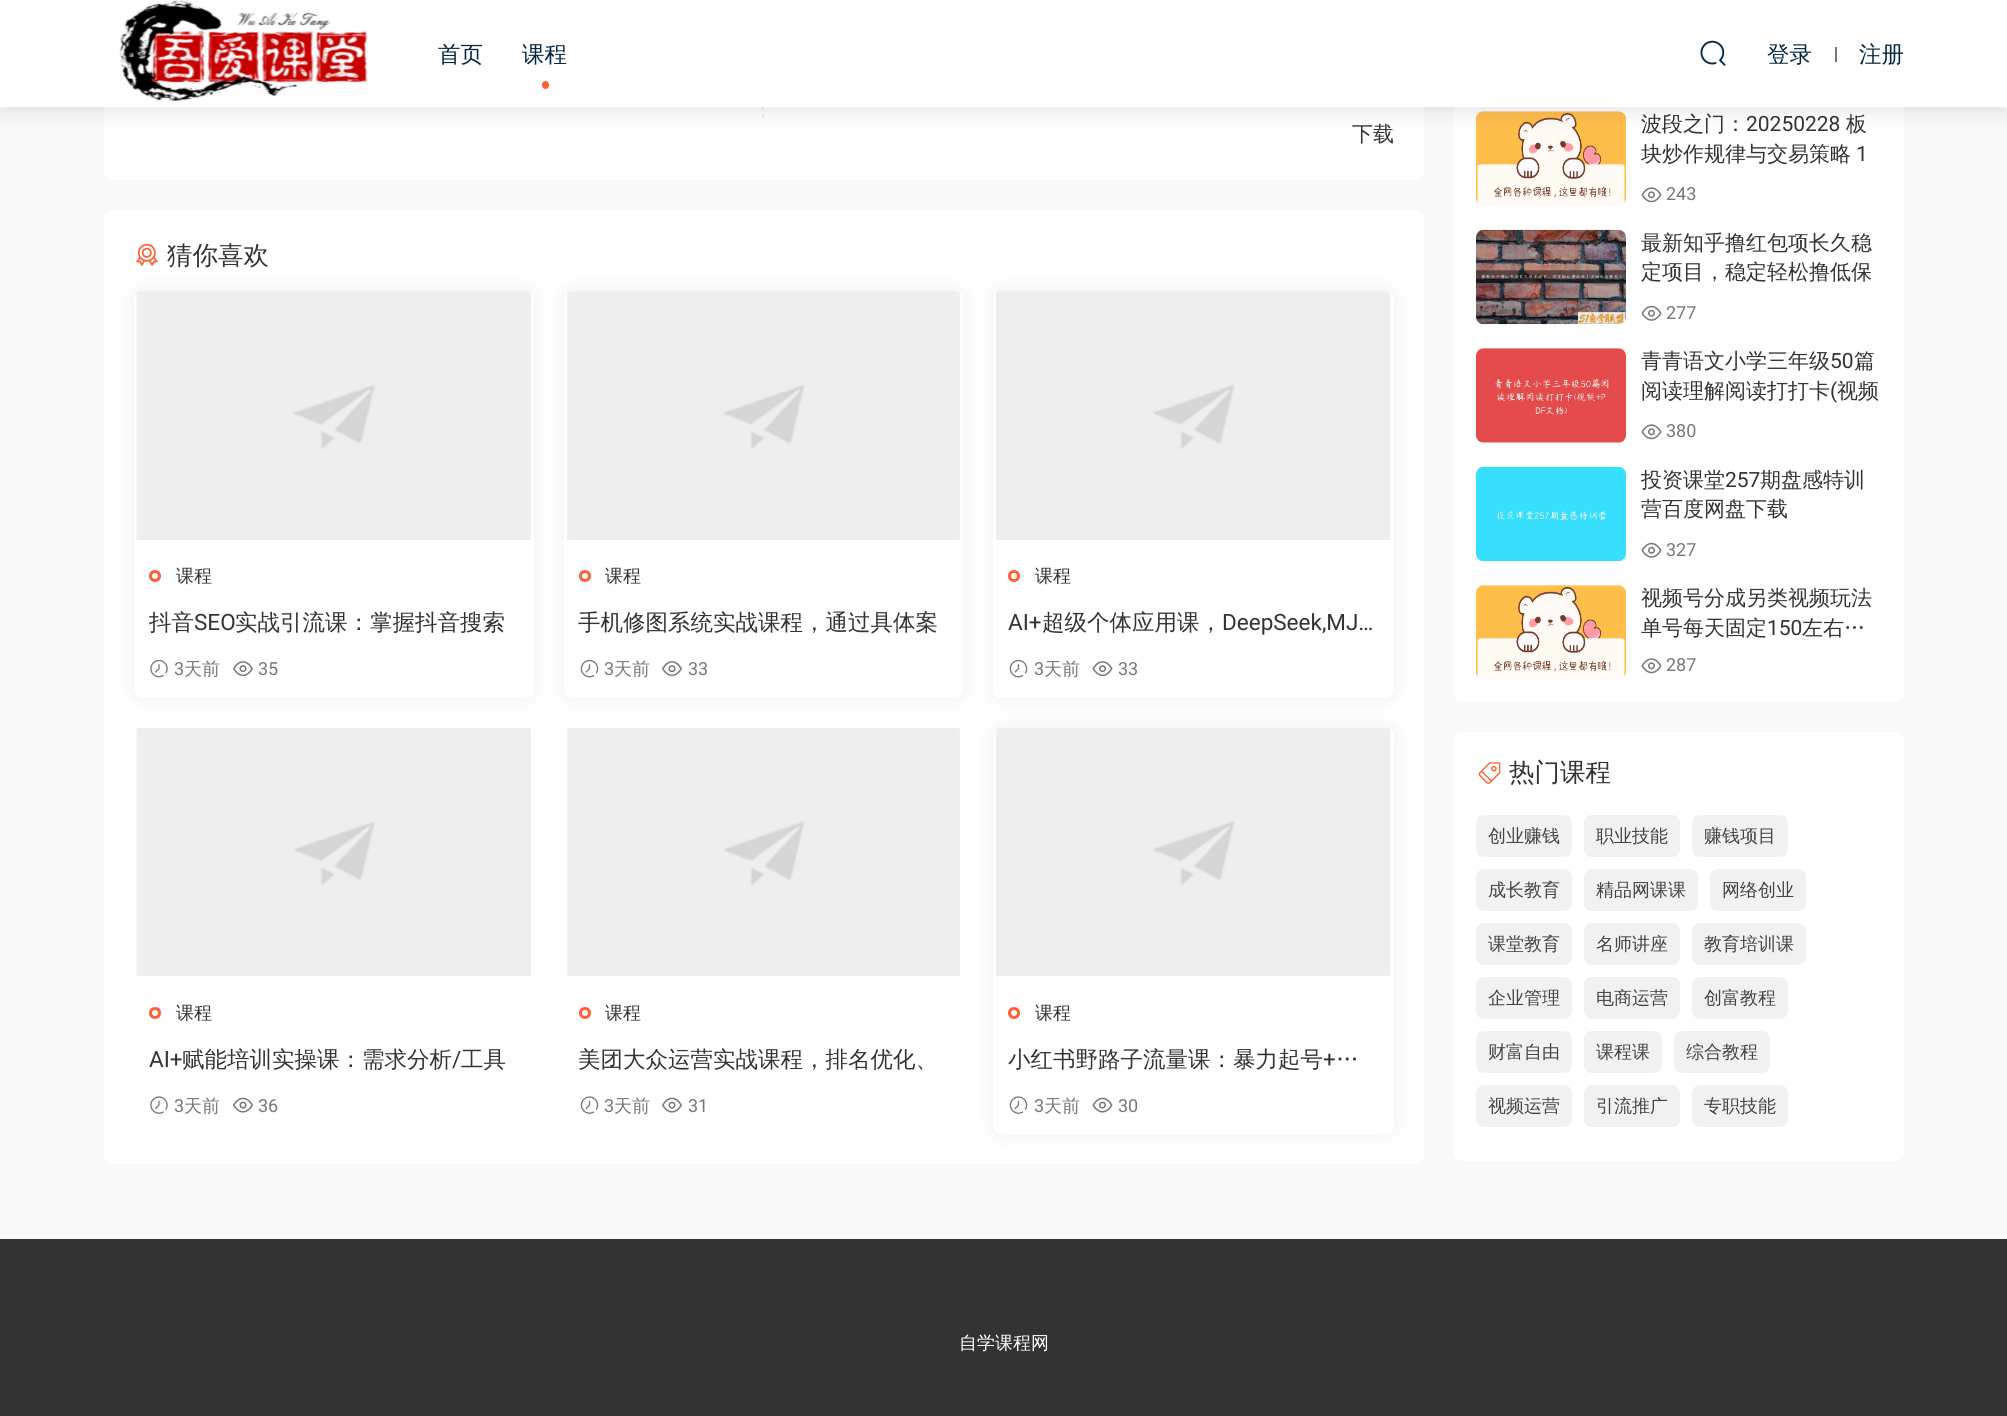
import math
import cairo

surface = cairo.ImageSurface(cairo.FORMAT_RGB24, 2007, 1416)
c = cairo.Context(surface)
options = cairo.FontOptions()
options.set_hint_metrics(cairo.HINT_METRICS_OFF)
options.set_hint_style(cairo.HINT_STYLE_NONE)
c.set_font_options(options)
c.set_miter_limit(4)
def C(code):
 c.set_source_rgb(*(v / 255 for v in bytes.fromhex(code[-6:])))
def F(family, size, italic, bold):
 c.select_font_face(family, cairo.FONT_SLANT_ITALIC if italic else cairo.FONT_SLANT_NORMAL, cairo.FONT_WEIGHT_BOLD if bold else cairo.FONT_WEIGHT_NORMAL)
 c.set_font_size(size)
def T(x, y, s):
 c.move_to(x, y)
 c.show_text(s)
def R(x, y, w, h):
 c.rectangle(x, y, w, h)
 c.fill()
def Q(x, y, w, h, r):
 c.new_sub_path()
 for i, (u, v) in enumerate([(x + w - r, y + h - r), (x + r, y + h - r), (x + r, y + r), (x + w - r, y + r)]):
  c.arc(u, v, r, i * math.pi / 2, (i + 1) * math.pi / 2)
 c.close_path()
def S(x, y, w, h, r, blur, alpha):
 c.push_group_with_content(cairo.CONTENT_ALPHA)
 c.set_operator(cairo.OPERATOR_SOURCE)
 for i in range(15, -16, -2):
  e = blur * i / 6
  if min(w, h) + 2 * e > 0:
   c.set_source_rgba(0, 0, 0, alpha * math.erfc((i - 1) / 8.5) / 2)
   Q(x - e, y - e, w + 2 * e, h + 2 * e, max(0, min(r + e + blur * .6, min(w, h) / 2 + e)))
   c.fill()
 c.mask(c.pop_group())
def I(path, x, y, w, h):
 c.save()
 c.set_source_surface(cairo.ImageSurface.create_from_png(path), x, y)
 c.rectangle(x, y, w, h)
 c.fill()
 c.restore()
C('f9f9f9')
c.paint()
C('ffffff')
Q(104,30,1320,150,8)
c.fill()
c.new_path()
c.move_to(763,60)
c.line_to(763,118.5)
C('eaeaea')
c.set_line_width(1.5)
c.set_dash([4.5,3.21])
c.stroke()
C('ffffff')
Q(1454,-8,450,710,8)
c.fill()
I('18.png',1476,111,150,95)
C('113a5d')
S(0,8,2007,106,0,7.5,.1)
C('ffffff')
R(0,0,2007,107)
I('1.png',119,0,250,102)
F('WenQuanYi Zen Hei Medium',22.5,0,0)
C('062743')
T(438,62,'首页')
T(522,62,'课程')
C('ff5f33')
Q(542,81,7,8,3.5)
c.fill()
I('2.png',1700,40,26,26)
C('062743')
T(1767,62,'登录')
C('777777')
R(1835,47,2,15)
C('062743')
T(1859,62,'注册')
F('WenQuanYi Zen Hei Medium',21,0,0)
C('333333')
T(1352,141,'下载')
C('ffffff')
Q(104,210,1320,954,8)
c.fill()
I('3.png',136,243,22,24)
F('WenQuanYi Zen Hei Medium',25.5,0,0)
C('333333')
T(167,264,'猜你喜欢')
C('000000')
S(134,291,400,407,8,11,.07)
C('ffffff')
Q(134,291,400,407,8)
c.fill()
I('4.png',136,291,395,249)
c.arc(155,576,4.5,0,2 * math.pi)
C('ff5f33')
c.set_line_width(3)
c.set_dash([])
c.stroke()
F('WenQuanYi Zen Hei Medium',18,0,0)
C('333333')
T(176,582,'课程')
c.save()
c.rectangle(149,608,370,30)
c.clip()
F('WenQuanYi Zen Hei Medium',22.5,0,0)
T(149,630,'抖音')
c.restore()
F('Roboto',22.5,0,0)
T(194,630,'SEO')
F('WenQuanYi Zen Hei Medium',22.5,0,0)
T(235,630,'实战引流课：掌握抖音搜索')
I('5.png',150,659,18,19)
F('Roboto',18,0,0)
C('777777')
T(174,675,'3')
F('WenQuanYi Zen Hei Medium',18,0,0)
T(184,675,'天前')
I('6.png',233,661,20,16)
F('Roboto',18,0,0)
T(258,675,'35')
C('000000')
S(564,291,399,407,8,11,.07)
C('ffffff')
Q(564,291,399,407,8)
c.fill()
I('7.png',567,291,393,249)
c.arc(585,576,4.5,0,2 * math.pi)
C('ff5f33')
c.stroke()
F('WenQuanYi Zen Hei Medium',18,0,0)
C('333333')
T(605,582,'课程')
F('WenQuanYi Zen Hei Medium',22.5,0,0)
T(578,630,'手机修图系统实战课程，通过具体案')
I('8.png',580,659,19,19)
F('Roboto',18,0,0)
C('777777')
T(604,675,'3')
F('WenQuanYi Zen Hei Medium',18,0,0)
T(614,675,'天前')
I('6.png',662,661,20,16)
F('Roboto',18,0,0)
T(688,675,'33')
C('000000')
S(993,291,401,407,8,11,.07)
C('ffffff')
Q(993,291,401,407,8)
c.fill()
I('9.png',996,291,395,249)
c.arc(1014,576,4.5,0,2 * math.pi)
C('ff5f33')
c.stroke()
F('WenQuanYi Zen Hei Medium',18,0,0)
C('333333')
T(1035,582,'课程')
F('Roboto',22.5,0,0)
T(1008,630,'AI+')
F('WenQuanYi Zen Hei Medium',22.5,0,0)
T(1042,630,'超级个体应用课，')
F('Roboto',22.5,0,0)
T(1222,630,'DeepSeek,MJ…')
I('8.png',1009,659,19,19)
F('Roboto',18,0,0)
C('777777')
T(1034,675,'3')
F('WenQuanYi Zen Hei Medium',18,0,0)
T(1044,675,'天前')
I('10.png',1092,661,21,16)
F('Roboto',18,0,0)
T(1118,675,'33')
I('11.png',136,728,395,248)
c.arc(155,1013,4.5,0,2 * math.pi)
C('ff5f33')
c.stroke()
F('WenQuanYi Zen Hei Medium',18,0,0)
C('333333')
T(176,1019,'课程')
F('Roboto',22.5,0,0)
T(149,1067,'AI+')
F('WenQuanYi Zen Hei Medium',22.5,0,0)
T(182,1067,'赋能培训实操课：需求分析')
F('Roboto',22.5,0,0)
T(452,1067,'/')
F('WenQuanYi Zen Hei Medium',22.5,0,0)
T(461,1067,'工具')
I('12.png',150,1096,18,18)
F('Roboto',18,0,0)
C('777777')
T(174,1112,'3')
F('WenQuanYi Zen Hei Medium',18,0,0)
T(184,1112,'天前')
I('13.png',233,1097,20,16)
F('Roboto',18,0,0)
T(258,1112,'36')
I('14.png',567,728,393,248)
c.arc(585,1013,4.5,0,2 * math.pi)
C('ff5f33')
c.stroke()
F('WenQuanYi Zen Hei Medium',18,0,0)
C('333333')
T(605,1019,'课程')
F('WenQuanYi Zen Hei Medium',22.5,0,0)
T(578,1067,'美团大众运营实战课程，排名优化、')
I('15.png',580,1096,19,18)
F('Roboto',18,0,0)
C('777777')
T(604,1112,'3')
F('WenQuanYi Zen Hei Medium',18,0,0)
T(614,1112,'天前')
I('13.png',662,1097,20,16)
F('Roboto',18,0,0)
T(688,1112,'31')
C('000000')
S(993,728,401,406,8,11,.07)
C('ffffff')
Q(993,728,401,406,8)
c.fill()
I('16.png',996,728,395,248)
c.arc(1014,1013,4.5,0,2 * math.pi)
C('ff5f33')
c.stroke()
F('WenQuanYi Zen Hei Medium',18,0,0)
C('333333')
T(1035,1019,'课程')
F('WenQuanYi Zen Hei Medium',22.5,0,0)
T(1008,1067,'小红书野路子流量课：暴力起号')
F('Roboto',22.5,0,0)
T(1323,1067,'+')
F('WenQuanYi Zen Hei Medium',22.5,0,0)
T(1336,1067,'…')
I('15.png',1009,1096,19,18)
F('Roboto',18,0,0)
C('777777')
T(1034,1112,'3')
F('WenQuanYi Zen Hei Medium',18,0,0)
T(1044,1112,'天前')
I('17.png',1092,1097,21,16)
F('Roboto',18,0,0)
T(1118,1112,'30')
F('WenQuanYi Zen Hei Medium',21,0,0)
C('333333')
T(1641,131,'波段之门：')
F('Roboto',21,0,0)
T(1746,131,'20250228')
F('WenQuanYi Zen Hei Medium',21,0,0)
T(1846,131,'板')
T(1641,161,'块炒作规律与交易策略')
F('Roboto',21,0,0)
T(1856,161,'1')
I('19.png',1641,187,21,16)
F('Roboto',18,0,0)
C('777777')
T(1666,200,'243')
I('20.png',1476,229,150,96)
F('WenQuanYi Zen Hei Medium',21,0,0)
C('333333')
T(1641,250,'最新知乎撸红包项长久稳')
T(1641,279,'定项目，稳定轻松撸低保')
I('21.png',1641,305,21,16)
F('Roboto',18,0,0)
C('777777')
T(1666,319,'277')
I('22.png',1476,348,150,95)
F('WenQuanYi Zen Hei Medium',21,0,0)
C('333333')
T(1641,368,'青青语文小学三年级')
F('Roboto',21,0,0)
T(1830,368,'50')
F('WenQuanYi Zen Hei Medium',21,0,0)
T(1854,368,'篇')
T(1641,398,'阅读理解阅读打打卡')
F('Roboto',21,0,0)
T(1830,398,'(')
F('WenQuanYi Zen Hei Medium',21,0,0)
T(1837,398,'视频')
I('19.png',1641,424,21,16)
F('Roboto',18,0,0)
C('777777')
T(1666,437,'380')
I('23.png',1476,466,150,96)
F('WenQuanYi Zen Hei Medium',21,0,0)
C('333333')
T(1641,487,'投资课堂')
F('Roboto',21,0,0)
T(1725,487,'257')
F('WenQuanYi Zen Hei Medium',21,0,0)
T(1760,487,'期盘感特训')
T(1641,516,'营百度网盘下载')
I('21.png',1641,542,21,16)
F('Roboto',18,0,0)
C('777777')
T(1666,556,'327')
I('24.png',1476,585,150,95)
F('WenQuanYi Zen Hei Medium',21,0,0)
C('333333')
T(1641,605,'视频号分成另类视频玩法')
T(1641,635,'单号每天固定')
F('Roboto',21,0,0)
T(1767,635,'150')
F('WenQuanYi Zen Hei Medium',21,0,0)
T(1802,635,'左右…')
I('19.png',1641,658,21,16)
F('Roboto',18,0,0)
C('777777')
T(1666,671,'287')
C('ffffff')
Q(1454,732,450,429,8)
c.fill()
I('25.png',1478,762,23,22)
F('WenQuanYi Zen Hei Medium',25.5,0,0)
C('333333')
T(1509,781,'热门课程')
C('f1f1f1')
Q(1476,815,96,42,8)
c.fill()
F('WenQuanYi Zen Hei Medium',18,0,0)
C('444444')
T(1488,842,'创业赚钱')
C('f1f1f1')
Q(1584,815,96,42,8)
c.fill()
C('444444')
T(1596,842,'职业技能')
C('f1f1f1')
Q(1692,815,96,42,8)
c.fill()
C('444444')
T(1704,842,'赚钱项目')
C('f1f1f1')
Q(1476,869,96,42,8)
c.fill()
C('444444')
T(1488,896,'成长教育')
C('f1f1f1')
Q(1584,869,114,42,8)
c.fill()
C('444444')
T(1596,896,'精品网课课')
C('f1f1f1')
Q(1710,869,96,42,8)
c.fill()
C('444444')
T(1722,896,'网络创业')
C('f1f1f1')
Q(1476,923,96,42,8)
c.fill()
C('444444')
T(1488,950,'课堂教育')
C('f1f1f1')
Q(1584,923,96,42,8)
c.fill()
C('444444')
T(1596,950,'名师讲座')
C('f1f1f1')
Q(1692,923,114,42,8)
c.fill()
C('444444')
T(1704,950,'教育培训课')
C('f1f1f1')
Q(1476,977,96,42,8)
c.fill()
C('444444')
T(1488,1004,'企业管理')
C('f1f1f1')
Q(1584,977,96,42,8)
c.fill()
C('444444')
T(1596,1004,'电商运营')
C('f1f1f1')
Q(1692,977,96,42,8)
c.fill()
C('444444')
T(1704,1004,'创富教程')
C('f1f1f1')
Q(1476,1031,96,42,8)
c.fill()
C('444444')
T(1488,1058,'财富自由')
C('f1f1f1')
Q(1584,1031,78,42,8)
c.fill()
C('444444')
T(1596,1058,'课程课')
C('f1f1f1')
Q(1674,1031,96,42,8)
c.fill()
C('444444')
T(1686,1058,'综合教程')
C('f1f1f1')
Q(1476,1085,96,42,8)
c.fill()
C('444444')
T(1488,1112,'视频运营')
C('f1f1f1')
Q(1584,1085,96,42,8)
c.fill()
C('444444')
T(1596,1112,'引流推广')
C('f1f1f1')
Q(1692,1085,96,42,8)
c.fill()
C('444444')
T(1704,1112,'专职技能')
C('333333')
R(0,1239,2007,177)
C('ffffff')
T(959,1349,'自学课程网')
surface.write_to_png('o.png')
